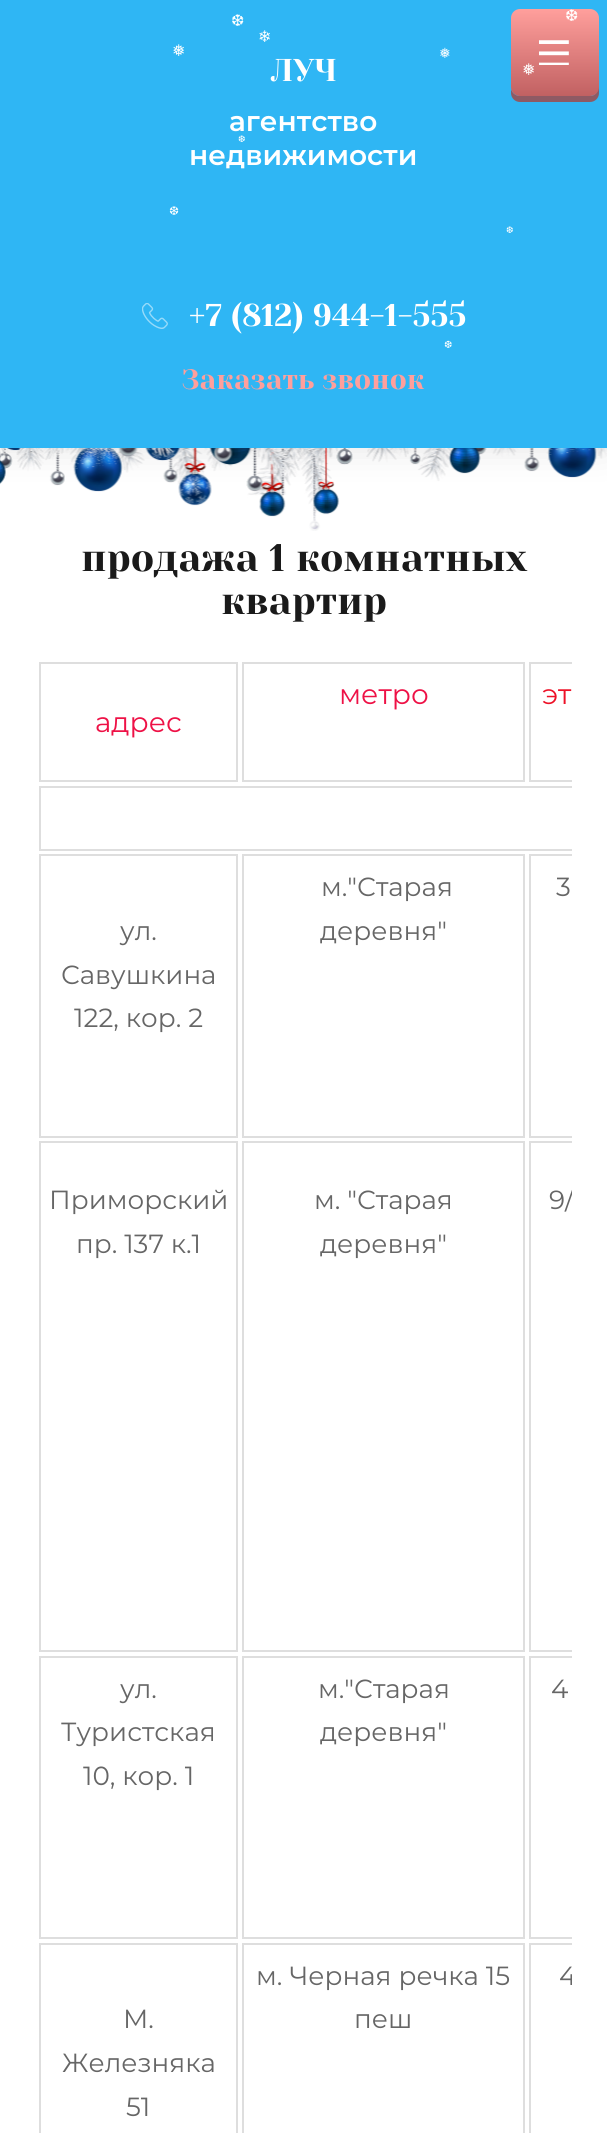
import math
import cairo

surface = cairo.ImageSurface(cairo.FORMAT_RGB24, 607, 2133)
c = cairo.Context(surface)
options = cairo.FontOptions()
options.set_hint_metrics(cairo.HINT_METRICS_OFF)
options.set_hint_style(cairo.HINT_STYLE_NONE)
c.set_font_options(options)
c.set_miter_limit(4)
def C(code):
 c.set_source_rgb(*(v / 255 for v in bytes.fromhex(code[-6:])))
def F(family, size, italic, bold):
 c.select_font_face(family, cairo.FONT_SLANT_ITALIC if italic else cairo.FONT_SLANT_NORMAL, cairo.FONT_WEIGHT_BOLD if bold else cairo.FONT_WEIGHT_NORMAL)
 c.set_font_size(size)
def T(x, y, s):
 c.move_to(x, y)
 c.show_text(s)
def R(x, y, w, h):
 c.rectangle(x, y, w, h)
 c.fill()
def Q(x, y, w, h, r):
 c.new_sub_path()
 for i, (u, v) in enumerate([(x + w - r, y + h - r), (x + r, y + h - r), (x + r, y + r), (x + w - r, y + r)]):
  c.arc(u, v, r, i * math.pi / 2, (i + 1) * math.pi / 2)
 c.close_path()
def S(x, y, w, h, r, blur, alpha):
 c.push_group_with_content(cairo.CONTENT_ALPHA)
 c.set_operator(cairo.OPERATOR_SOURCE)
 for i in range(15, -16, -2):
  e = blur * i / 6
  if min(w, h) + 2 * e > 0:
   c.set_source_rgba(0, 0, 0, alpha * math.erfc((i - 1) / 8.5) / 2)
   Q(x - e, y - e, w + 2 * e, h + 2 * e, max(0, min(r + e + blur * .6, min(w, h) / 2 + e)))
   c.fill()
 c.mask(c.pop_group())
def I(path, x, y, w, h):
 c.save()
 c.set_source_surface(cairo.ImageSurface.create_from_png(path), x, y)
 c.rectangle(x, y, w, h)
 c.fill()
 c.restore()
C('ffffff')
c.paint()
I('3.png',0,448,607,83)
C('000000')
S(-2,-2,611,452,0,17.5,.1)
C('2fb6f4')
R(0,0,607,448)
F('DejaVu Sans',16,0,0)
C('ffffff')
T(231,26,'❆')
C('8e5a64')
c.new_path()
c.move_to(511,88)
c.line_to(511,93)
c.curve_to(511,98,515,102,520,102)
c.line_to(590,102)
c.curve_to(595,102,599,98,599,93)
c.line_to(599,23)
c.line_to(598,20)
c.line_to(598,88)
c.curve_to(598,92,595,96,590,96)
c.line_to(520,96)
c.curve_to(515,96,511,92,511,88)
c.close_path()
c.fill()
gradient = cairo.LinearGradient(555,9,555,96)
gradient.add_color_stop_rgba(0,1,0.624,0.612,1)
gradient.add_color_stop_rgba(1,0.757,0.38,0.384,1)
c.set_source(gradient)
Q(511,9,88,87,9)
c.fill()
C('ffffff')
T(565,21,'❆')
T(258,42,'❄')
T(172,56,'❅')
F('DejaVu Sans',14,0,0)
T(439,58,'❅')
F('Yeseva One',31.5,0,0)
T(271,81,'ЛУЧ')
F('Montserrat SemiBold',28,0,0)
T(229,131,'агентство')
T(189,165,'недвижимости')
I('1.png',142,303,26,26)
F('Yeseva One',31.5,0,0)
T(189,326,'+7 (812) 944-1-555')
F('Yeseva One',28,0,0)
C('ff9f9c')
T(182,389,'Заказать звонок')
I('2.png',539,40,30,25)
F('Yeseva One',38.5,0,0)
C('1a1a1a')
T(81,571,'продажа 1 комнатных')
T(221,614,'квартир')
c.rectangle(243,663,281,118)
C('dedede')
c.stroke()
F('Montserrat',28,0,0)
C('ee1146')
T(339,704,'метро')
c.save()
c.rectangle(35,658,537,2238)
c.clip()
c.rectangle(530,663,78,118)
C('dedede')
c.stroke()
c.restore()
C('ed1127')
T(542,704,'эт')
c.rectangle(40,663,197,118)
C('dedede')
c.stroke()
C('ee1146')
T(95,732,'адрес')
c.save()
c.rectangle(35,658,537,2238)
c.clip()
c.rectangle(40,787,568,63)
C('dedede')
c.stroke()
c.restore()
c.rectangle(243,855,281,282)
C('dedede')
c.stroke()
F('Montserrat',26.25,0,0)
C('666666')
T(321,896,'м."Старая')
T(320,940,'деревня"')
c.save()
c.rectangle(35,658,537,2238)
c.clip()
c.rectangle(530,855,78,282)
C('dedede')
c.stroke()
c.restore()
T(556,896,'3')
c.rectangle(40,855,197,282)
C('dedede')
c.stroke()
C('666666')
T(120,940,'ул.')
T(61,984,'Савушкина')
T(74,1027,'122, кор. 2')
c.rectangle(40,1142,197,509)
C('dedede')
c.stroke()
C('666666')
T(49,1209,'Приморский')
T(76,1253,'пр. 137 к.1')
c.rectangle(243,1142,281,509)
C('dedede')
c.stroke()
C('666666')
T(314,1209,'м. "Старая')
T(320,1253,'деревня"')
c.save()
c.rectangle(35,658,537,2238)
c.clip()
c.rectangle(530,1142,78,509)
C('dedede')
c.stroke()
C('666666')
T(549,1209,'9/')
c.restore()
c.rectangle(40,1657,197,281)
C('dedede')
c.stroke()
C('666666')
T(120,1698,'ул.')
T(61,1741,'Туристская')
T(83,1785,'10, кор. 1')
c.rectangle(243,1657,281,281)
C('dedede')
c.stroke()
C('666666')
T(318,1698,'м."Старая')
T(320,1741,'деревня"')
c.save()
c.rectangle(35,658,537,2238)
c.clip()
c.rectangle(530,1657,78,281)
C('dedede')
c.stroke()
c.restore()
T(551,1698,'4')
c.rectangle(243,1944,281,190)
C('dedede')
c.stroke()
C('666666')
T(256,1985,'м. Черная речка 15')
T(354,2028,'пеш')
c.save()
c.rectangle(35,658,537,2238)
c.clip()
c.rectangle(530,1944,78,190)
C('dedede')
c.stroke()
C('666666')
T(559,1985,'4')
c.restore()
c.rectangle(40,1944,197,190)
C('dedede')
c.stroke()
C('666666')
T(123,2028,'М.')
T(62,2072,'Железняка')
T(126,2116,'51')
F('DejaVu Sans',16,0,0)
C('ffffff')
T(522,75,'❅')
F('DejaVu Sans',9,0,0)
T(238,142,'❆')
F('DejaVu Sans',12,0,0)
T(169,215,'❆')
F('DejaVu Sans',9,0,0)
T(506,233,'❆')
F('DejaVu Sans',10,0,0)
T(444,348,'❆')
surface.write_to_png('o.png')
